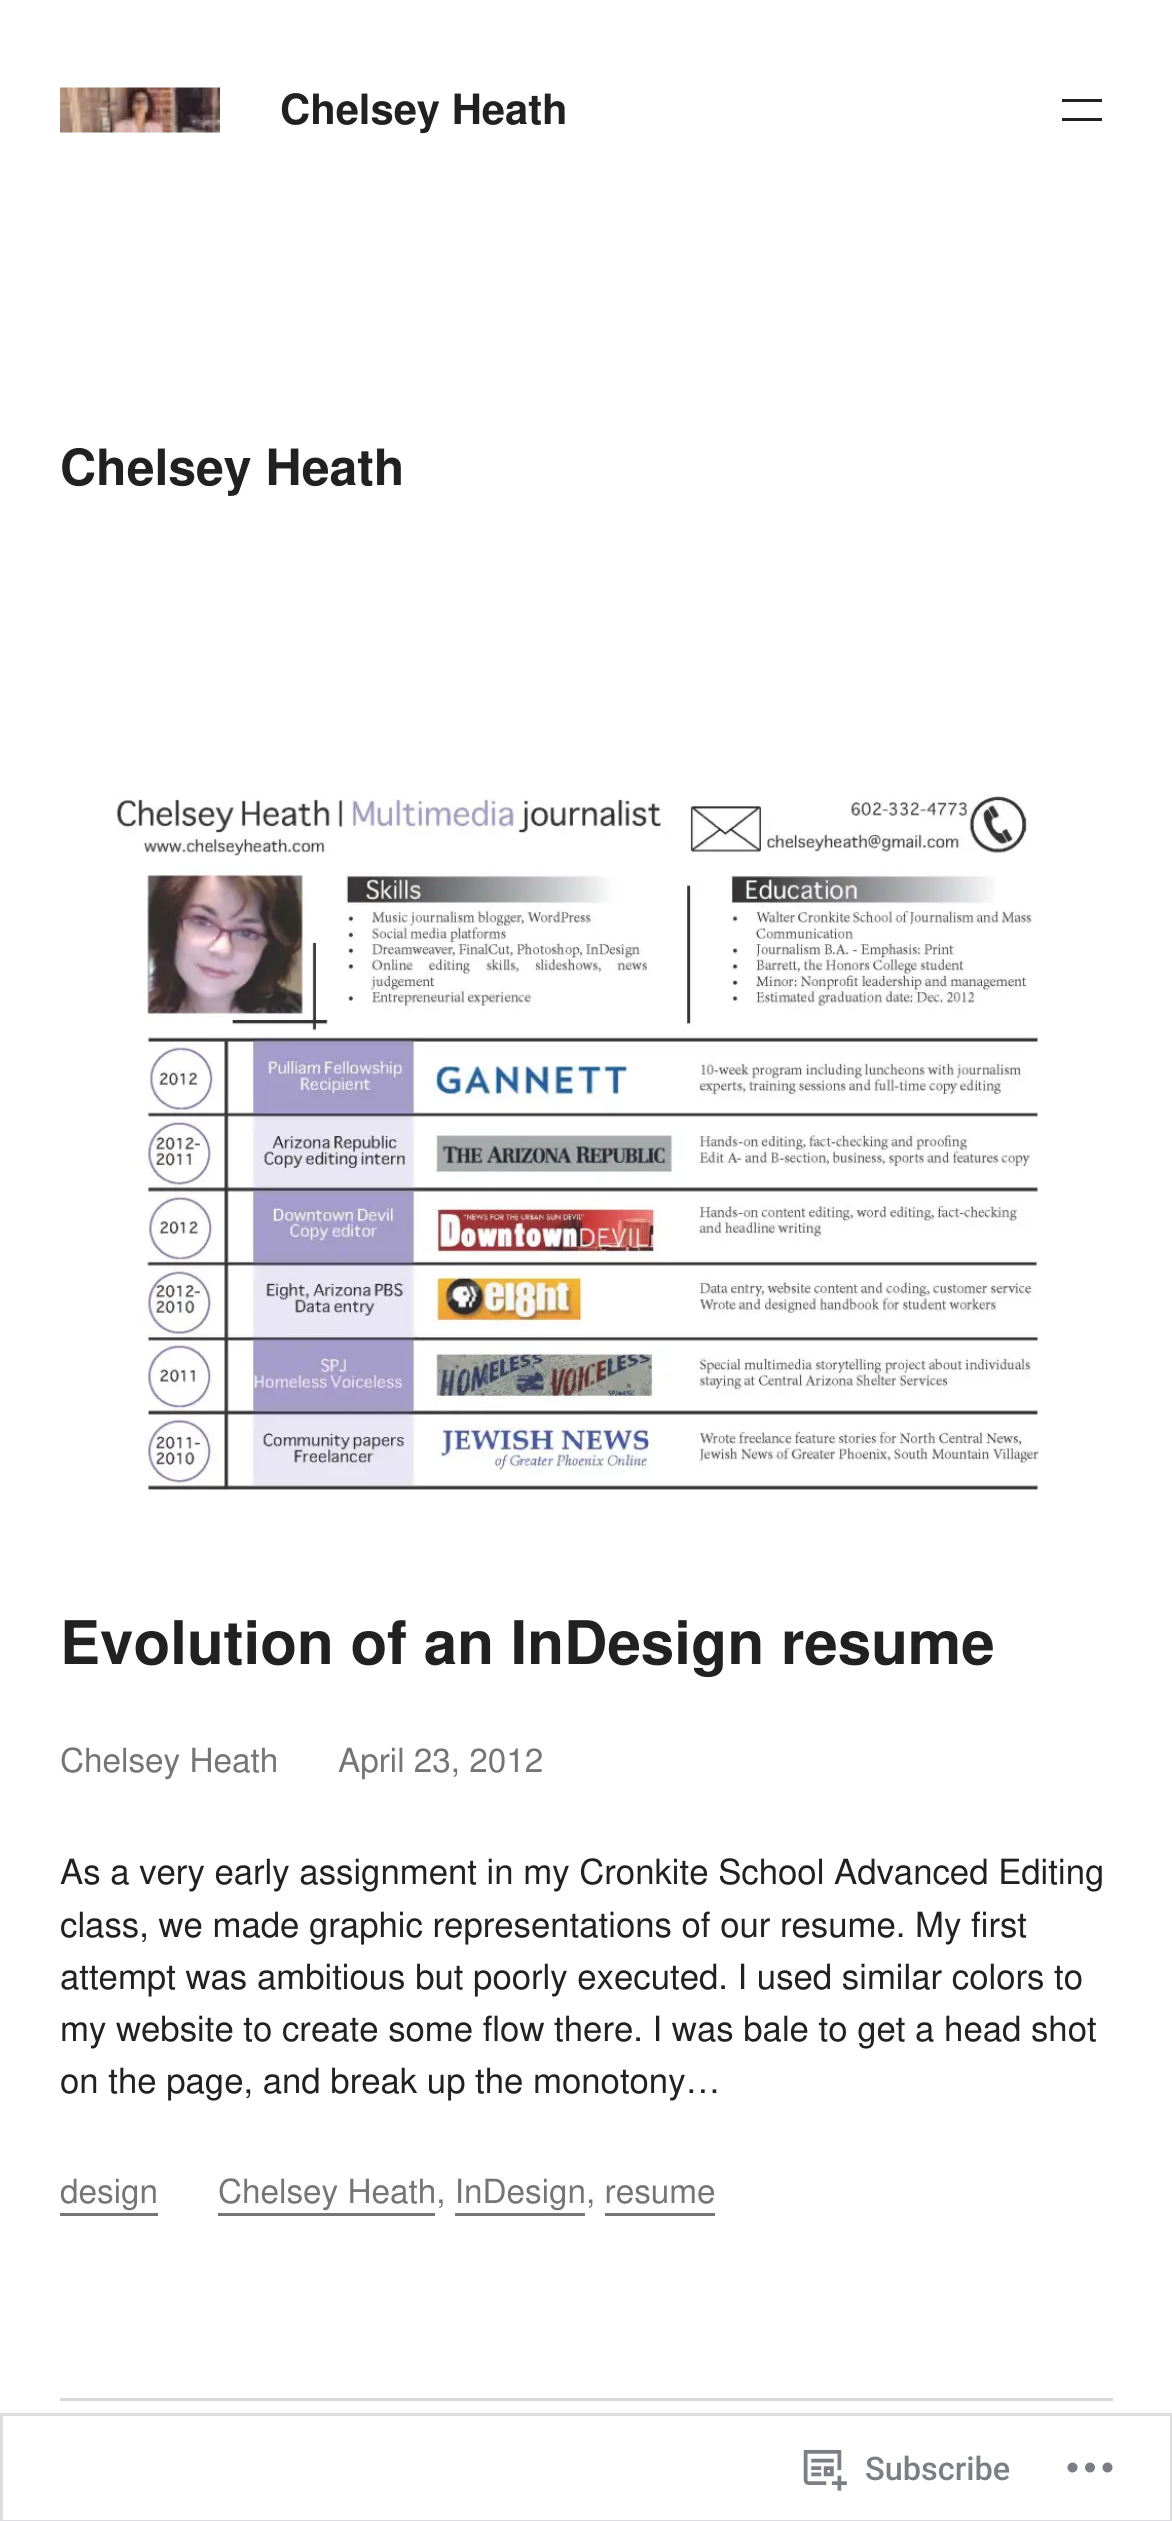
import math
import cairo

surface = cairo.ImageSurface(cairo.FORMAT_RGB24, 1172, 2521)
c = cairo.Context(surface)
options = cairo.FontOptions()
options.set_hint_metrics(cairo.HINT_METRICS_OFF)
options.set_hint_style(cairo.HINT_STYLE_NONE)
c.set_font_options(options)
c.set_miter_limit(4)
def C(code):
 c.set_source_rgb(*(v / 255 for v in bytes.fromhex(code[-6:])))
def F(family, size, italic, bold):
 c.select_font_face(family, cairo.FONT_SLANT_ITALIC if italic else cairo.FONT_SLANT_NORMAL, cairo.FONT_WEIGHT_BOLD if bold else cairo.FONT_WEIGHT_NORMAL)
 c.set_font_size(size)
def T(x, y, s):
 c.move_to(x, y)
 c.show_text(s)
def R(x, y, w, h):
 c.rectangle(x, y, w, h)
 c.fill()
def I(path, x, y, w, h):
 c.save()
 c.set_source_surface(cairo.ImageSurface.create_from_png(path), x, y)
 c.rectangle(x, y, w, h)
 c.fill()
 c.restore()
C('ffffff')
c.paint()
I('1.png',60,87,160,46)
F('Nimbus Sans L',41.75,0,1)
C('212121')
T(280,124,'Chelsey Heath')
R(1062,99,40,3)
R(1062,118,40,3)
F('Nimbus Sans L',50,0,1)
T(60,485,'Chelsey Heath')
I('2.png',116,795,924,695)
F('Nimbus Sans L',60.1,0,1)
T(60,1664,'Evolution of an InDesign resume')
F('Nimbus Sans L',33.3,0,0)
C('757575')
T(60,1772,'Chelsey Heath')
T(338,1772,'April 23, 2012')
F('Nimbus Sans L',34.75,0,0)
C('212121')
T(60,1884,'As a very early assignment in my Cronkite School Advanced Editing')
T(60,1937,'class, we made graphic representations of our resume. My first')
T(60,1989,'attempt was ambitious but poorly executed. I used similar colors to')
T(60,2041,'my website to create some flow there. I was bale to get a head shot')
T(60,2093,'on the page, and break up the monotony…')
F('Nimbus Sans L',33.3,0,0)
C('757575')
T(60,2203,'design')
R(60,2213,98,3)
T(218,2203,'Chelsey Heath, InDesign, resume')
R(218,2213,217,3)
R(455,2213,130,3)
R(605,2213,110,3)
C('d9d9d9')
R(60,2398,1053,3)
c.rectangle(1.5,2414.5,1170,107)
C('dddddf')
c.set_line_width(3)
c.stroke()
I('3.png',803,2450,44,41)
F('Roboto Medium',32.5,0,0)
C('7b7f85')
T(865,2480,'Subscribe')
I('4.png',1067,2462,46,11)
surface.write_to_png('o.png')
